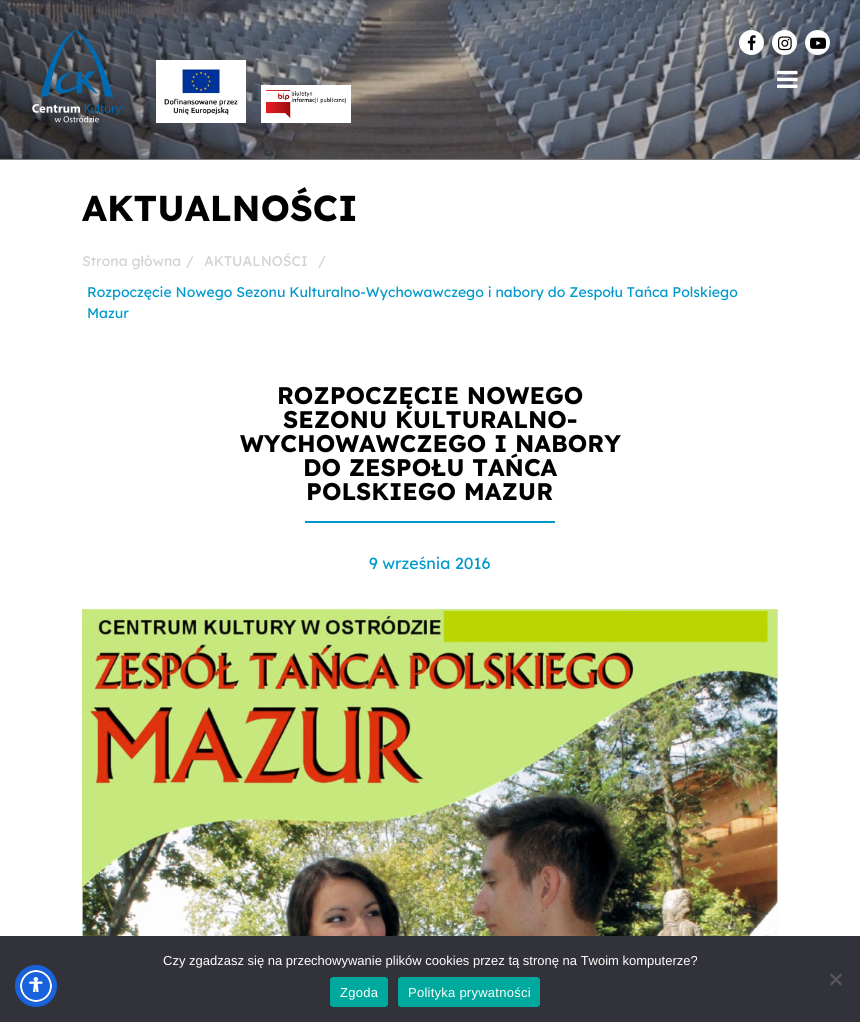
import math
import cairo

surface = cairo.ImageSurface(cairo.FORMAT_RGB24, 860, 1022)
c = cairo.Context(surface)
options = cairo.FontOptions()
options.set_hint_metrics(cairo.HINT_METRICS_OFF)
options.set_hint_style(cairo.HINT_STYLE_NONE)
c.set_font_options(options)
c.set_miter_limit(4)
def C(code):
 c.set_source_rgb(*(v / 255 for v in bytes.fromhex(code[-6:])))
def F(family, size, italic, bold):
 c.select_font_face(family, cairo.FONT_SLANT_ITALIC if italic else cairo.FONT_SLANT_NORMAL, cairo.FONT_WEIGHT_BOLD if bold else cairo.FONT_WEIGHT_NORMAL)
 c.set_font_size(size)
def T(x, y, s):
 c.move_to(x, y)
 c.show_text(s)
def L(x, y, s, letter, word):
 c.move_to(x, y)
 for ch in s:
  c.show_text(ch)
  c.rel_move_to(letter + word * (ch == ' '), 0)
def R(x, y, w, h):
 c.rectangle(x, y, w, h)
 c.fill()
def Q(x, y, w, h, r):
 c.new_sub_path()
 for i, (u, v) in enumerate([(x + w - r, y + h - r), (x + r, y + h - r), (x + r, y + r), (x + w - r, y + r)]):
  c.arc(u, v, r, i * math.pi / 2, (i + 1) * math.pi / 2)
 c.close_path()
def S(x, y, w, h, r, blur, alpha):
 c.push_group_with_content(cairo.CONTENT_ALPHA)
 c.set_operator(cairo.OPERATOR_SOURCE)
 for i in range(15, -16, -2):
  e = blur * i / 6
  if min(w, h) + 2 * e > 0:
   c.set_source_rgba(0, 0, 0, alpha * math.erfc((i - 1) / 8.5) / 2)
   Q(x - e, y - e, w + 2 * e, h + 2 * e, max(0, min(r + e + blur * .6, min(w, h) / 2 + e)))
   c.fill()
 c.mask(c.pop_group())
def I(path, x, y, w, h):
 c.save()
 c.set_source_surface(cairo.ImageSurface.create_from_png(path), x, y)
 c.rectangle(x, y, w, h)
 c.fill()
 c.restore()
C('ffffff')
c.paint()
I('1.png',0,0,860,159)
I('2.png',32,30,90,93)
I('3.png',156,60,90,63)
c.rectangle(263.5,87.5,85,33)
C('ffffff')
c.set_line_width(5)
c.stroke()
I('4.png',266,90,80,28)
I('5.png',777,70,21,18)
c.arc(751.5,42.5,12.5,0,2 * math.pi)
c.fill()
I('6.png',747,35,9,16)
c.arc(784.5,42.5,12.5,0,2 * math.pi)
c.fill()
I('7.png',778,36,14,15)
c.arc(817.5,42.5,12.5,0,2 * math.pi)
c.fill()
I('8.png',810,37,16,12)
C('808080')
R(0,159,860,1)
F('Lexend',36,0,1)
C('000000')
T(82,221,'AKTUALNOŚCI')
F('Lexend',14,0,0)
C('d1d1d1')
T(82,266,'Strona główna')
T(186,266,'/')
T(204,266,'AKTUALNOŚCI')
T(318,266,'/')
C('0099cc')
T(87,297,'Rozpoczęcie Nowego Sezonu Kulturalno-Wychowawczego i nabory do Zespołu Tańca Polskiego')
T(87,318,'Mazur')
F('Lexend',24,0,1)
C('000000')
T(277,404,'ROZPOCZĘCIE NOWEGO')
T(283,428,'SEZONU KULTURALNO-')
T(240,452,'WYCHOWAWCZEGO I NABORY')
T(303,476,'DO ZESPOŁU TAŃCA')
T(306,500,'POLSKIEGO MAZUR')
C('0099cc')
R(305,521,250,2)
F('Lexend',16,0,0)
T(369,569,'9 września 2016')
I('9.png',82,609,696,327)
C('32323a')
R(0,936,860,86)
C('5d6494')
S(20,972,32,32,16,2,.2)
C('1863dc')
c.arc(36,986,15,0,2 * math.pi)
c.fill_preserve()
C('ffffff')
c.set_line_width(2)
c.stroke()
c.arc(36,986,18.5,0,2 * math.pi)
C('1863dc')
c.set_line_width(5)
c.stroke()
I('10.png',29,977,14,15)
F('Liberation Sans',13,0,0)
C('ffffff')
T(163,965,'Czy zgadzasz się na przechowywanie plików cookies przez tą stronę na Twoim komputerze?')
C('59595d')
c.new_path()
c.move_to(840.5,973.5)
c.line_to(842,975)
c.line_to(831.5,985.5)
c.line_to(830,984)
c.close_path()
c.fill()
c.new_path()
c.move_to(830,975)
c.line_to(831.5,973.5)
c.line_to(842,984)
c.line_to(840.5,985.5)
c.close_path()
c.fill()
C('00a99d')
Q(330,977,58,30,3)
c.fill()
C('ffffff')
L(340,997,'Zgoda',.25,0)
C('00a99d')
Q(398,977,142,30,3)
c.fill()
C('ffffff')
L(408,997,'Polityka prywatności',.25,0)
surface.write_to_png('o.png')
